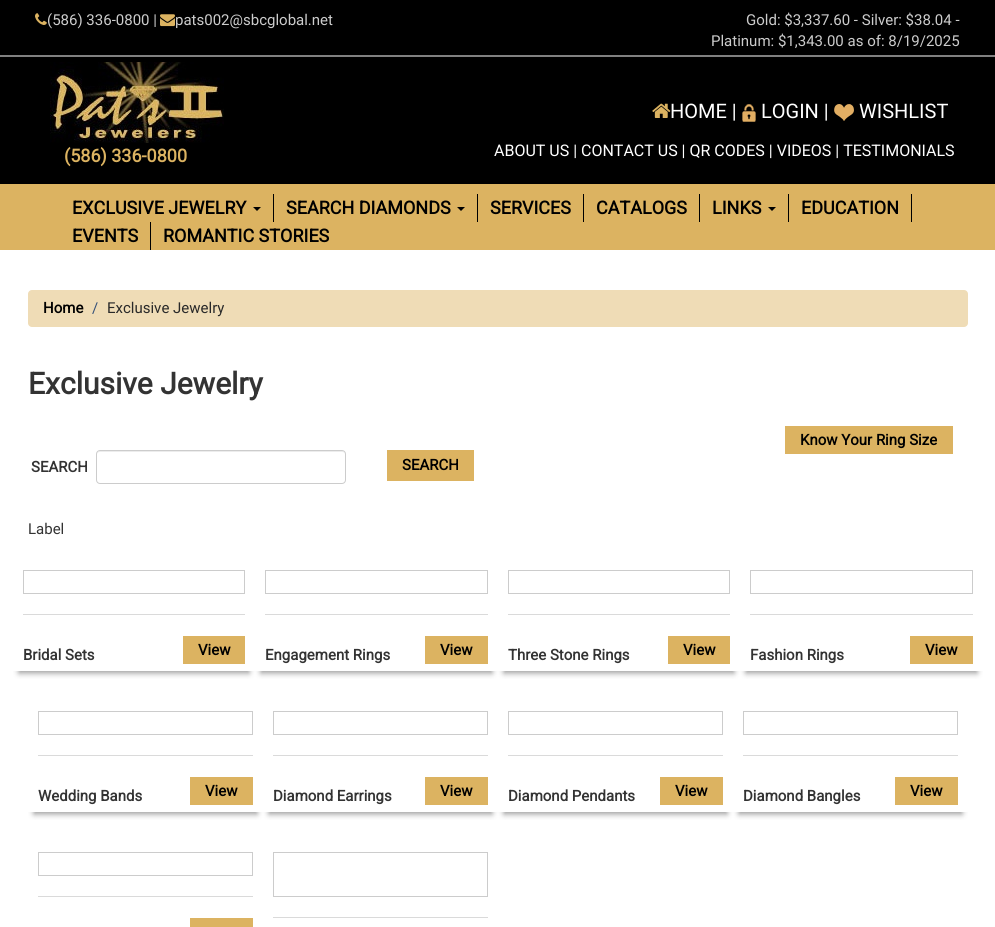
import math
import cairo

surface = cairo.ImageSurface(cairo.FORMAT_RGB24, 995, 927)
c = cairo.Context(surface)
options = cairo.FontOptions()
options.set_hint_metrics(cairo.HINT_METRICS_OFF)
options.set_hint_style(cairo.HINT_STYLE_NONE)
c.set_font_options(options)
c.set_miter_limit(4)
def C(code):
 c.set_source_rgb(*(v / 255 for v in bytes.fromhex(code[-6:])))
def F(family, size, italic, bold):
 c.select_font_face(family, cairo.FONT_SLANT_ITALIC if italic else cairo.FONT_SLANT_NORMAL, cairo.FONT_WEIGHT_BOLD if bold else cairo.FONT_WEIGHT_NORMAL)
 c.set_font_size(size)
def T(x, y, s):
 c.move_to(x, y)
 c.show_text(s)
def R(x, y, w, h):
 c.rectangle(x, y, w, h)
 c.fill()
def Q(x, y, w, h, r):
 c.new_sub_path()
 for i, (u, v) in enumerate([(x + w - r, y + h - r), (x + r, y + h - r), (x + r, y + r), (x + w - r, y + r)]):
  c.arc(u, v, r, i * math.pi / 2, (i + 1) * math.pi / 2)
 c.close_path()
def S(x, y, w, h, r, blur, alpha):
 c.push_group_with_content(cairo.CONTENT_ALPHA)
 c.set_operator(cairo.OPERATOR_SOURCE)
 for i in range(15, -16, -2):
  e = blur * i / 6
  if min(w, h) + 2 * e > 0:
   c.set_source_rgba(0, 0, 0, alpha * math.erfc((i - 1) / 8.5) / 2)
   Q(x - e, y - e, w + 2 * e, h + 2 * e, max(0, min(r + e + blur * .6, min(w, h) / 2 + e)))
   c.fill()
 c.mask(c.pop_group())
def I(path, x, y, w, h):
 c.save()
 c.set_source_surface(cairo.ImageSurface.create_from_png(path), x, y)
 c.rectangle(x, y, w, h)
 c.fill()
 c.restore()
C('ffffff')
c.paint()
C('000000')
R(0,0,995,55)
I('1.png',35,13,12,12)
F('Roboto',15,0,0)
C('cccccc')
T(47,25,'(586) 336-0800 |')
I('2.png',160,14,15,13)
T(175,25,'pats002@sbcglobal.net')
T(746,25,'Gold: $3,337.60 - Silver: $38.04 -')
T(711,46,'Platinum: $1,343.00 as of: 8/19/2025')
C('808080')
R(0,55,995,2)
C('000000')
R(0,57,995,127)
I('3.png',50,62,174,81)
F('Roboto',18,0,1)
C('dcb361')
T(64,162,'(586) 336-0800')
I('4.png',652,103,19,15)
F('Roboto',20,0,0)
C('ffffff')
T(670,118,'HOME |')
I('5.png',742,104,14,18)
T(761,118,'LOGIN |')
I('6.png',834,104,20,17)
T(859,118,'WISHLIST')
F('Roboto',16,0,0)
T(494,156,'ABOUT US | CONTACT US | QR CODES | VIDEOS | TESTIMONIALS')
C('dcb361')
R(0,184,995,66)
C('000000')
R(273,194,1,28)
F('Roboto',18,0,1)
T(72,214,'EXCLUSIVE JEWELRY')
c.new_path()
c.move_to(253,207)
c.line_to(261,207)
c.line_to(257,211)
c.close_path()
c.fill()
R(477,194,1,28)
T(286,214,'SEARCH DIAMONDS')
c.new_path()
c.move_to(457,207)
c.line_to(465,207)
c.line_to(461,211)
c.close_path()
c.fill()
R(583,194,1,28)
T(490,214,'SERVICES')
R(699,194,1,28)
T(596,214,'CATALOGS')
R(788,194,1,28)
T(712,214,'LINKS')
c.new_path()
c.move_to(768,207)
c.line_to(776,207)
c.line_to(772,211)
c.close_path()
c.fill()
R(911,194,1,28)
T(801,214,'EDUCATION')
R(150,222,1,28)
T(72,242,'EVENTS')
T(163,242,'ROMANTIC STORIES')
C('efdcb6')
Q(28,290,940,37,4)
c.fill()
F('Roboto',15,0,1)
C('000000')
T(43,313,'Home')
F('Roboto',15,0,0)
C('345078')
T(92,313,'/')
C('292929')
T(107,313,'Exclusive Jewelry')
F('Roboto',30,0,1)
C('333333')
T(28,394,'Exclusive Jewelry')
C('dcb361')
R(785,426,168,28)
F('Roboto',15,0,1)
C('000000')
T(800,445,'Know Your Ring Size')
C('333333')
T(31,472,'SEARCH')
C('ececec')
c.new_path()
c.move_to(100,452)
c.line_to(342,452)
c.curve_to(344,452,345,453,345,455)
c.curve_to(345,453,344,451,342,451)
c.line_to(100,451)
c.curve_to(98,451,97,453,97,455)
c.curve_to(97,453,98,452,100,452)
c.close_path()
c.fill()
Q(96.5,450.5,249,33,3.5)
C('cccccc')
c.set_line_width(1)
c.stroke()
C('dcb361')
R(387,450,87,31)
C('000000')
T(402,470,'SEARCH')
F('Roboto',15,0,0)
C('333333')
T(28,534,'Label')
c.save()
c.rectangle(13,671,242,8)
c.clip()
C('999999')
S(19,554,230,119,0,3,1)
c.restore()
c.rectangle(23.5,570.5,221,23)
C('cccccc')
c.stroke()
C('dadada')
R(23,614,222,1)
F('Roboto',15,0,1)
C('333333')
T(23,660,'Bridal Sets')
C('dcb361')
R(183,636,62,28)
C('000000')
T(198,655,'View')
c.save()
c.rectangle(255,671,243,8)
c.clip()
C('999999')
S(261,554,231,119,0,3,1)
c.restore()
c.rectangle(265.5,570.5,222,23)
C('cccccc')
c.stroke()
C('dadada')
R(265,614,223,1)
C('333333')
T(265,660,'Engagement Rings')
C('dcb361')
R(425,636,63,28)
C('000000')
T(440,655,'View')
c.save()
c.rectangle(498,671,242,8)
c.clip()
C('999999')
S(504,554,230,119,0,3,1)
c.restore()
c.rectangle(508.5,570.5,221,23)
C('cccccc')
c.stroke()
C('dadada')
R(508,614,222,1)
C('333333')
T(508,660,'Three Stone Rings')
C('dcb361')
R(668,636,62,28)
C('000000')
T(683,655,'View')
c.save()
c.rectangle(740,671,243,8)
c.clip()
C('999999')
S(746,554,231,119,0,3,1)
c.restore()
c.rectangle(750.5,570.5,222,23)
C('cccccc')
c.stroke()
C('dadada')
R(750,614,223,1)
C('333333')
T(750,660,'Fashion Rings')
C('dcb361')
R(910,636,63,28)
C('000000')
T(925,655,'View')
c.save()
c.rectangle(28,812,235,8)
c.clip()
C('999999')
S(34,695,223,119,0,3,1)
c.restore()
c.rectangle(38.5,711.5,214,23)
C('cccccc')
c.stroke()
C('dadada')
R(38,755,215,1)
C('333333')
T(38,801,'Wedding Bands')
C('dcb361')
R(190,777,63,28)
C('000000')
T(205,796,'View')
c.save()
c.rectangle(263,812,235,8)
c.clip()
C('999999')
S(269,695,223,119,0,3,1)
c.restore()
c.rectangle(273.5,711.5,214,23)
C('cccccc')
c.stroke()
C('dadada')
R(273,755,215,1)
C('333333')
T(273,801,'Diamond Earrings')
C('dcb361')
R(425,777,63,28)
C('000000')
T(440,796,'View')
c.save()
c.rectangle(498,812,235,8)
c.clip()
C('999999')
S(504,695,223,119,0,3,1)
c.restore()
c.rectangle(508.5,711.5,214,23)
C('cccccc')
c.stroke()
C('dadada')
R(508,755,215,1)
C('333333')
T(508,801,'Diamond Pendants')
C('dcb361')
R(660,777,63,28)
C('000000')
T(675,796,'View')
c.save()
c.rectangle(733,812,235,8)
c.clip()
C('999999')
S(739,695,223,119,0,3,1)
c.restore()
c.rectangle(743.5,711.5,214,23)
C('cccccc')
c.stroke()
C('dadada')
R(743,755,215,1)
C('333333')
T(743,801,'Diamond Bangles')
C('dcb361')
R(895,777,63,28)
C('000000')
T(910,796,'View')
c.rectangle(38.5,852.5,214,23)
C('cccccc')
c.stroke()
C('dadada')
R(38,896,215,1)
C('dcb361')
R(190,918,63,9)
c.rectangle(273.5,852.5,214,44)
C('cccccc')
c.stroke()
C('dadada')
R(273,917,215,1)
surface.write_to_png('o.png')
